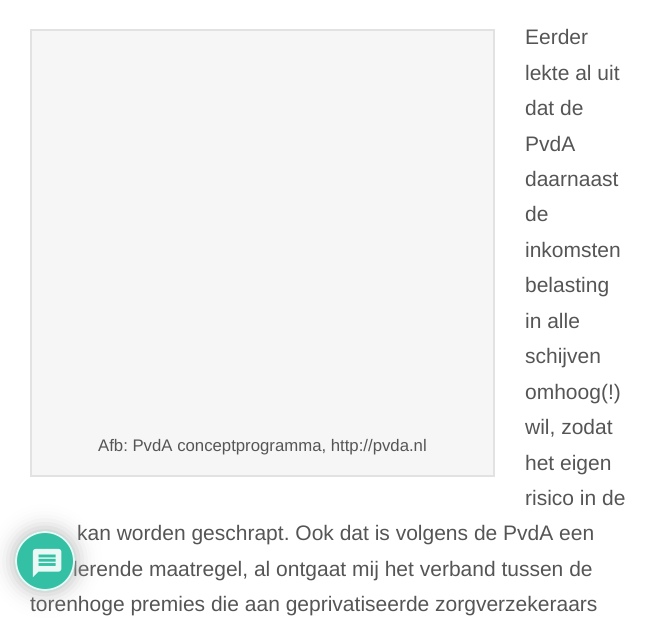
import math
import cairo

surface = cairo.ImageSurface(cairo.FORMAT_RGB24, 659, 621)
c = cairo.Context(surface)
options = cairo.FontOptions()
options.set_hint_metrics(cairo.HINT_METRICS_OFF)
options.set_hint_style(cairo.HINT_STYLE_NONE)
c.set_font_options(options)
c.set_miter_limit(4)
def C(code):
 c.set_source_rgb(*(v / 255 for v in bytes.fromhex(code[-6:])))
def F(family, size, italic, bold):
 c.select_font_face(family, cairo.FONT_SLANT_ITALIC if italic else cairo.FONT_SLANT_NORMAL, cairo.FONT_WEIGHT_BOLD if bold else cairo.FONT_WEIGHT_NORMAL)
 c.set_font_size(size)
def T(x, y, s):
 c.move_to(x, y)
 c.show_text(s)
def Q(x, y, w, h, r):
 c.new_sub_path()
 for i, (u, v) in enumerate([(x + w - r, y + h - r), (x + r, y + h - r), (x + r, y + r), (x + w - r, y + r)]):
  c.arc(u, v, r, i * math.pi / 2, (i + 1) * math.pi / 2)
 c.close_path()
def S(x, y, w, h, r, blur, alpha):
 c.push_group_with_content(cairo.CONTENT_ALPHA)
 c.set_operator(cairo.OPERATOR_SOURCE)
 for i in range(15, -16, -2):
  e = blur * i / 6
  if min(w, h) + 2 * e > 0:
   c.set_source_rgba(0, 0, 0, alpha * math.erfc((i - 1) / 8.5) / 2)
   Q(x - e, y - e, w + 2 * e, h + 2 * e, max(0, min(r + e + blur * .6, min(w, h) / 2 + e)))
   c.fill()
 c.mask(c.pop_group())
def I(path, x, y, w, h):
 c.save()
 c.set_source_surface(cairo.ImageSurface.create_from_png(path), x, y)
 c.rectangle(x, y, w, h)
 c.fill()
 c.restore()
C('ffffff')
c.paint()
F('Liberation Sans',21,0,0)
C('555555')
T(525,44,'Eerder')
T(525,80,'lekte al uit')
T(525,115,'dat de')
T(525,151,'PvdA')
T(525,186,'daarnaast')
T(525,221,'de')
T(525,257,'inkomsten')
T(525,292,'belasting')
T(525,328,'in alle')
T(525,363,'schijven')
T(525,399,'omhoog(!)')
T(525,434,'wil, zodat')
T(525,470,'het eigen')
T(525,505,'risico in de')
T(77,540,'kan worden geschrapt. Ook dat is volgens de PvdA een')
T(73,576,'lerende maatregel, al ontgaat mij het verband tussen de')
T(30,611,'torenhoge premies die aan geprivatiseerde zorgverzekeraars')
C('f6f6f6')
c.rectangle(31,30,463,446)
c.fill_preserve()
C('e2e2e2')
c.stroke()
F('Liberation Sans',16.75,0,0)
C('555555')
T(98,451,'Afb: PvdA conceptprogramma, http://pvda.nl')
c.save()
c.set_fill_rule(cairo.FILL_RULE_EVEN_ODD)
c.new_path()
c.move_to(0,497)
c.line_to(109,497)
c.line_to(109,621)
c.line_to(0,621)
c.close_path()
c.move_to(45,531)
c.curve_to(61.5,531,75,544.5,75,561)
c.curve_to(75,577.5,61.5,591,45,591)
c.curve_to(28.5,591,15,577.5,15,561)
c.curve_to(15,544.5,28.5,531,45,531)
c.close_path()
c.clip()
C('aaaaaa')
S(15,531,60,60,30,11,.9)
c.restore()
c.set_source_rgba(0.114,0.725,0.604,0.9)
c.arc(45,561,30,0,2 * math.pi)
c.fill()
c.arc(45,561,29,0,2 * math.pi)
c.set_source_rgba(1,1,1,0.9)
c.stroke()
I('1.png',32,548,30,30)
surface.write_to_png('o.png')
